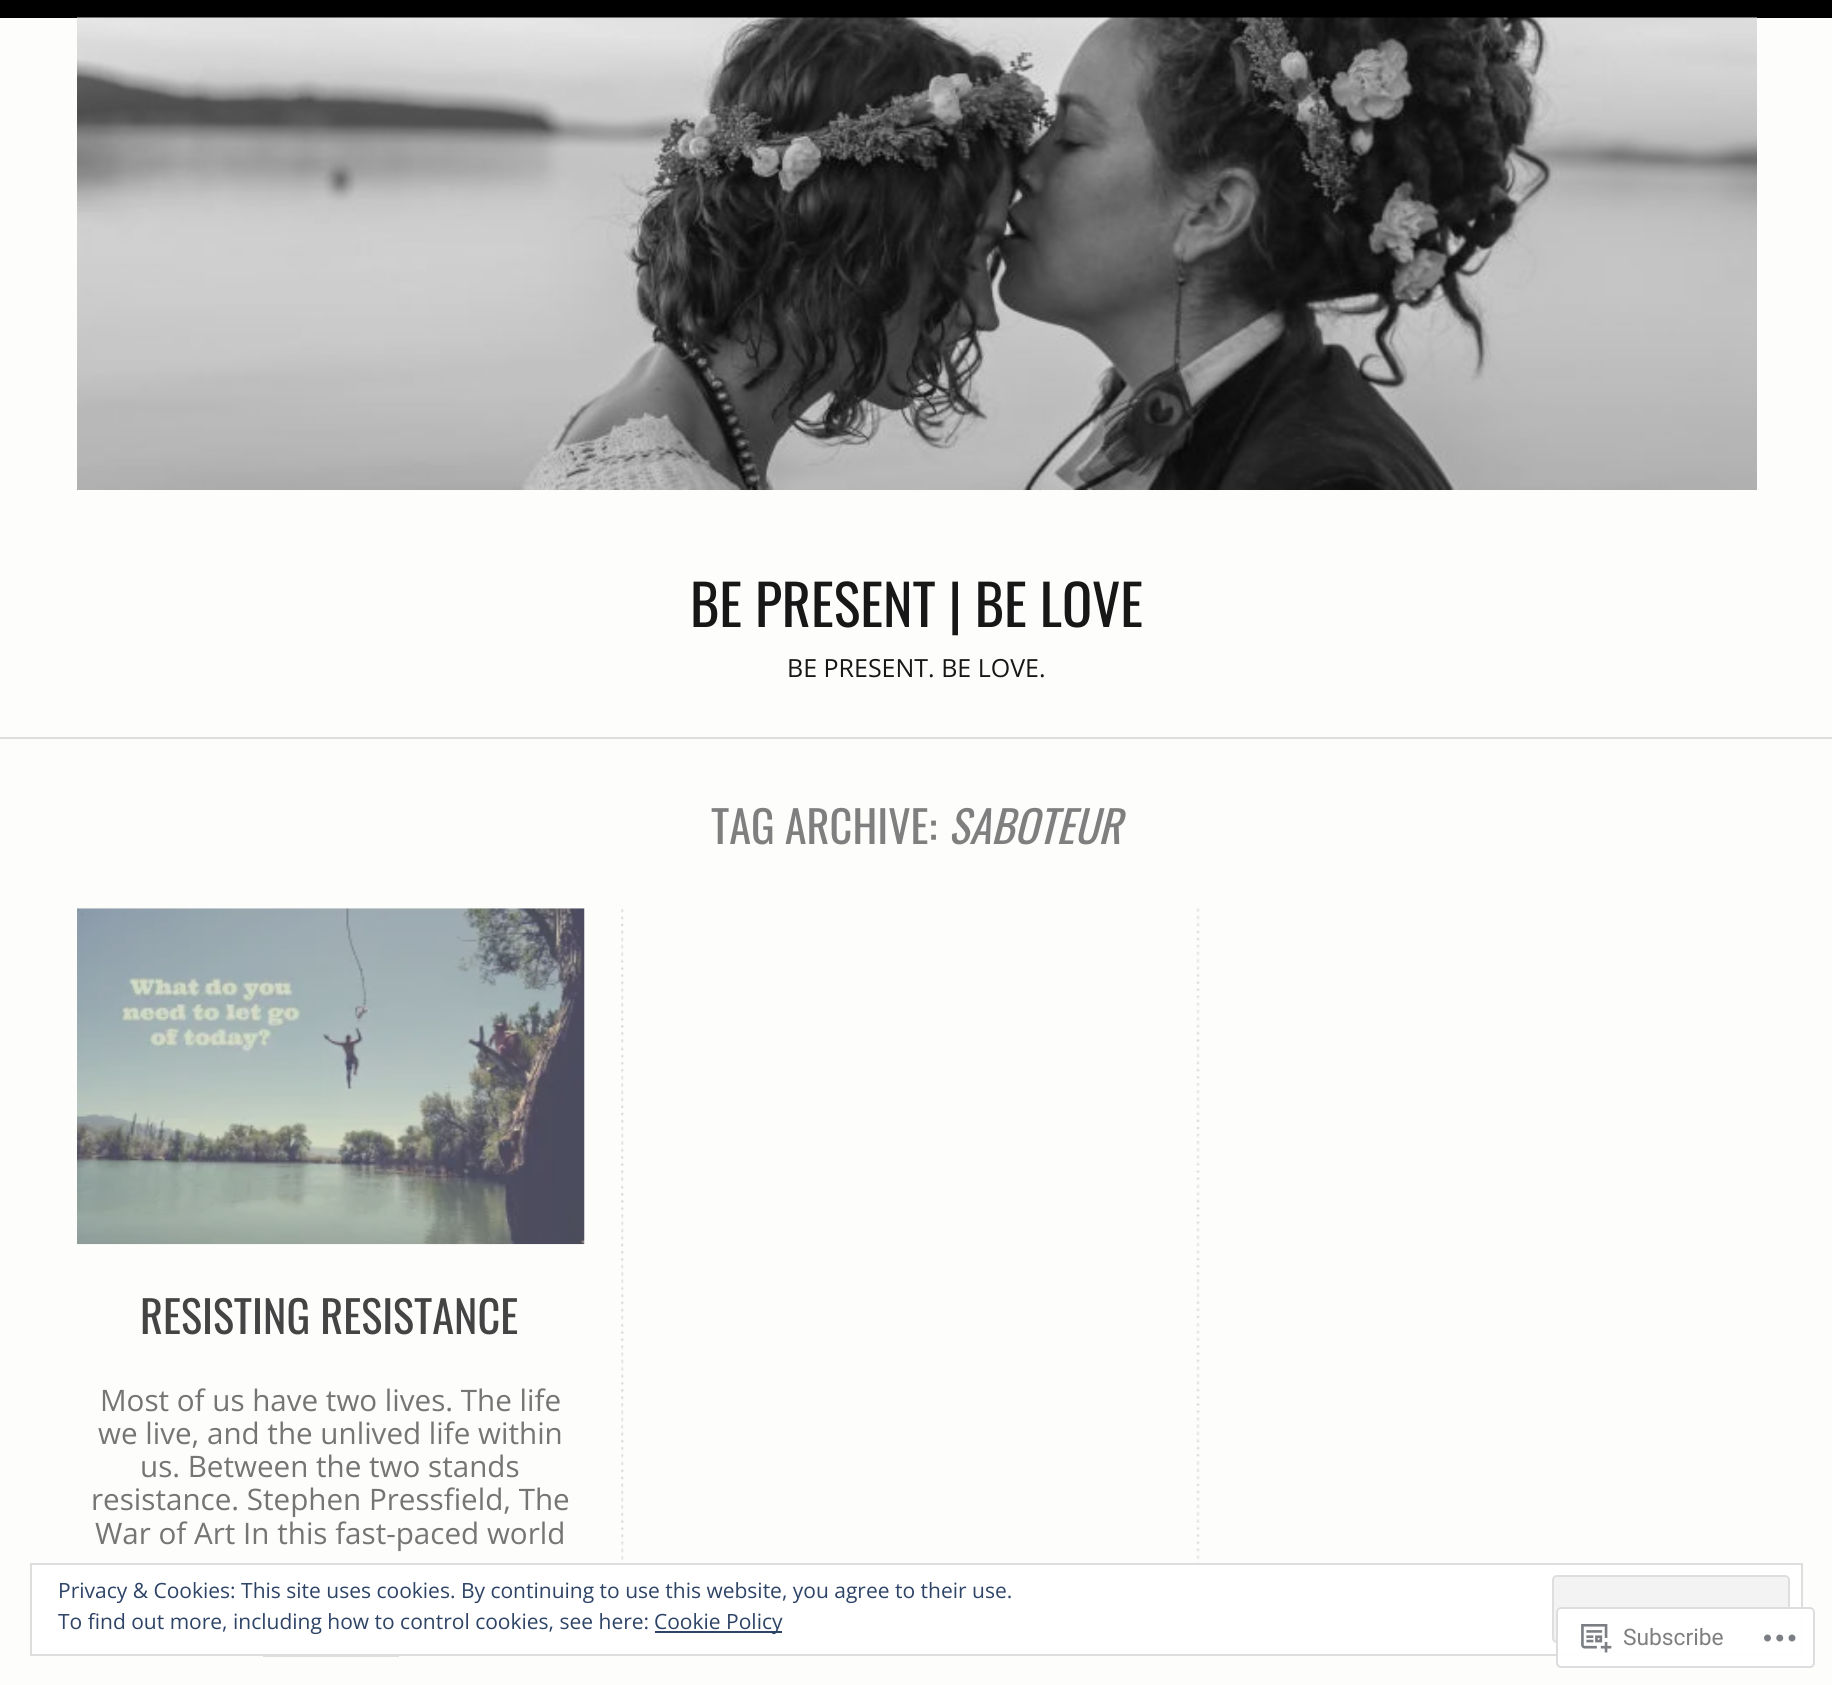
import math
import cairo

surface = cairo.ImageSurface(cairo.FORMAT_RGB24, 1832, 1685)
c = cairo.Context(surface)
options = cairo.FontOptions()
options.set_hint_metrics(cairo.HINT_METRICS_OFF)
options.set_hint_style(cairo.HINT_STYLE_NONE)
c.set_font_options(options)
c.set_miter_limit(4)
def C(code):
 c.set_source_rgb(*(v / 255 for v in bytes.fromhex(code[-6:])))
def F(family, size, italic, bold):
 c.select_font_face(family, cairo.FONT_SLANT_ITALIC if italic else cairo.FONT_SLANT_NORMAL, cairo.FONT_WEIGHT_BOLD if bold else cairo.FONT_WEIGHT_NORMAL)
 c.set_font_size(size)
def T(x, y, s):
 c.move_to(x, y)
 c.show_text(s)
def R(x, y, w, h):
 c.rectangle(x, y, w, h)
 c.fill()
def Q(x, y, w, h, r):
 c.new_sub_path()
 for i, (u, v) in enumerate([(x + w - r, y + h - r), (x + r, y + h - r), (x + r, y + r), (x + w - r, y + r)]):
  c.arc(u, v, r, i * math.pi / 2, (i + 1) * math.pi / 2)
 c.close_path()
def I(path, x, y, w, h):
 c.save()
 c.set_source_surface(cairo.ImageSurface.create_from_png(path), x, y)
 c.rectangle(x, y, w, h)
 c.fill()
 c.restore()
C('fdfdfc')
c.paint()
C('000000')
R(0,0,1832,18)
C('dedede')
R(0,737,1832,2)
I('1.png',77,17,1680,473)
F('Oswald',56,0,0)
C('171717')
T(690,627,'BE PRESENT | BE LOVE')
F('Open Sans',25,0,0)
T(787,677,'BE PRESENT. BE LOVE.')
F('Oswald',44.25,0,0)
C('7f7f7f')
T(711,844,'TAG ARCHIVE:')
F('Oswald',44.25,1,0)
T(948,844,'SABOTEUR')
I('2.png',621,908,579,655)
I('3.png',77,908,508,337)
F('Oswald',44.25,0,0)
C('444444')
T(140,1334,'RESISTING RESISTANCE')
F('Open Sans',29.6,0,0)
C('757575')
T(100,1411,'Most of us have two lives. The life')
T(98,1444,'we live, and the unlived life within')
T(140,1477,'us. Between the two stands')
T(91,1510,'resistance. Stephen Pressfield, The')
T(95,1544,'War of Art In this fast-paced world')
C('dfdfdf')
R(263,1656,136,1)
C('ffffff')
c.rectangle(31,1564,1771,91)
c.fill_preserve()
C('dedede')
c.stroke()
F('Open Sans',21,0,0)
C('2e4467')
T(58,1598,'Privacy & Cookies: This site uses cookies. By continuing to use this website, you agree to their use.')
C('f3f3f3')
Q(1553,1576,236,66,4)
c.fill_preserve()
C('dedede')
c.stroke()
C('2e4467')
T(58,1629,'To find out more, including how to control cookies, see here:')
R(655,1631,127,2)
T(654,1629,'Cookie Policy')
c.set_source_rgba(1,1,1,0.98)
Q(1556,1607,259,61,5)
c.fill()
Q(1557,1608,257,59,4)
c.set_source_rgba(0.863,0.863,0.871,0.98)
c.stroke()
I('4.png',1581,1624,31,29)
F('Roboto',22.75,0,0)
C('7f7f7f')
T(1623,1645,'Subscribe')
I('5.png',1764,1634,32,8)
surface.write_to_png('o.png')
